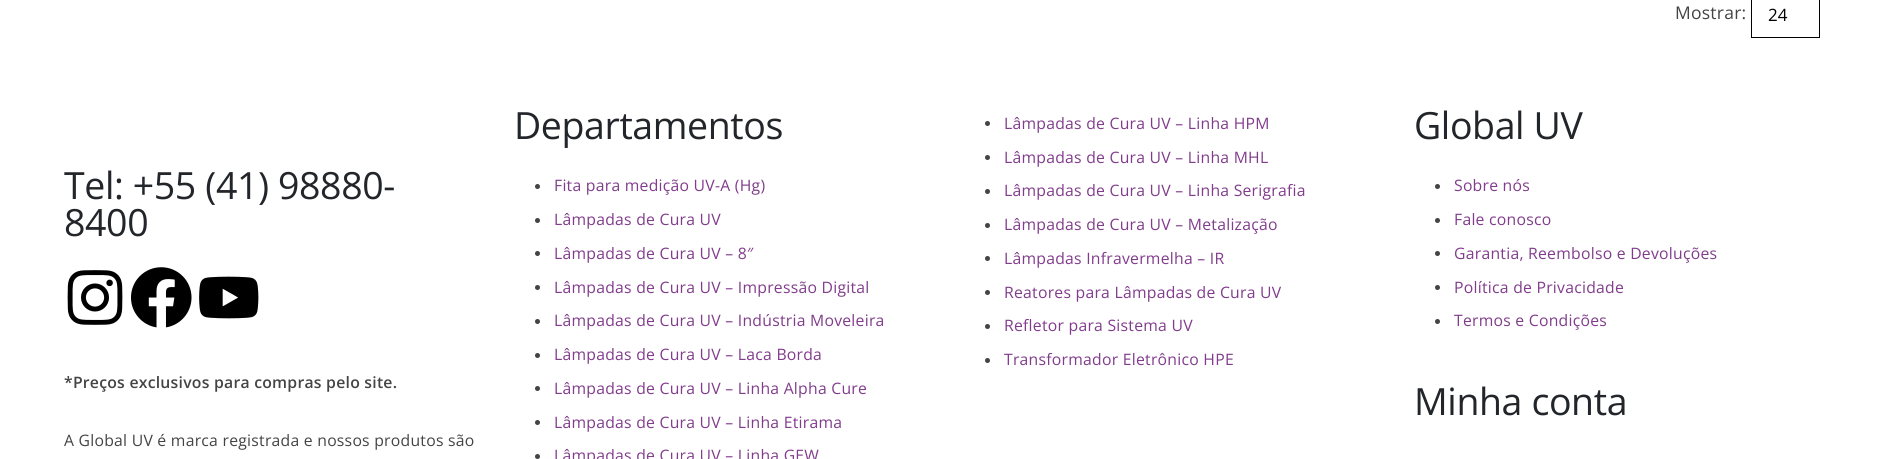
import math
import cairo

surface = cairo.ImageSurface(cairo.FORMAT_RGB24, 1890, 459)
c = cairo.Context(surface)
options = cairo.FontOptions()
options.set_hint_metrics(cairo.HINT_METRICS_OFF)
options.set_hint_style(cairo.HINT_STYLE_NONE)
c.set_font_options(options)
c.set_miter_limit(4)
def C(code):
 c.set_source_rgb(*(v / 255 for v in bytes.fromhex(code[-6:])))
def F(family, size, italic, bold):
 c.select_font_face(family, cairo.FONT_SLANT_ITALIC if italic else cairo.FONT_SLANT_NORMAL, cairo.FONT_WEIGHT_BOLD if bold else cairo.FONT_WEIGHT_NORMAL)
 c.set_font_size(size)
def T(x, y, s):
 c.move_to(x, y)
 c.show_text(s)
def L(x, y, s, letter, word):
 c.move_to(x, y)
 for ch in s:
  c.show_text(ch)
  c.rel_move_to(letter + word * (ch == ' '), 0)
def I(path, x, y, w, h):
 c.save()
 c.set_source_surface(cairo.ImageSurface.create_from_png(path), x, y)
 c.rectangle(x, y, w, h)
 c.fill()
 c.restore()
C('ffffff')
c.paint()
F('Open Sans',17.5,0,0)
C('444444')
L(1675,19,'Mostrar:',.25,0)
c.rectangle(1751.5,-.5,68,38)
C('000000')
c.set_line_width(1)
c.stroke()
F('Open Sans',17,0,0)
T(1768,21,'24')
F('Open Sans',37.5,0,0)
C('222529')
L(64,199,'Tel: +55 (41) 98880-',-.4,0)
L(64,236,'8400',-.4,0)
I('1.png',67,270,56,55)
I('2.png',131,267,61,61)
I('3.png',199,276,60,43)
F('Open Sans SemiBold',15.75,0,0)
C('444444')
L(64,388,'*Preços exclusivos para compras pelo site.',.25,0)
F('Open Sans',15.75,0,0)
L(64,446,'A Global UV é marca registrada e nossos produtos são',.25,0)
F('Open Sans',37.5,0,0)
C('222529')
L(514,139,'Departamentos',-.4,0)
C('444444')
c.new_path()
c.arc(537.5,186.5,2.5,0,2 * math.pi)
c.fill()
F('Open Sans',15.75,0,0)
C('813c8c')
L(554,191,'Fita para medição UV-A (Hg)',.25,0)
C('444444')
c.new_path()
c.arc(537.5,220.5,2.5,0,2 * math.pi)
c.fill()
C('813c8c')
L(554,225,'Lâmpadas de Cura UV',.25,0)
C('444444')
c.new_path()
c.arc(537.5,253.5,2.5,0,2 * math.pi)
c.fill()
C('813c8c')
L(554,259,'Lâmpadas de Cura UV – 8″',.25,0)
C('444444')
c.new_path()
c.arc(537.5,287.5,2.5,0,2 * math.pi)
c.fill()
C('813c8c')
L(554,293,'Lâmpadas de Cura UV – Impressão Digital',.25,0)
C('444444')
c.new_path()
c.arc(537.5,321.5,2.5,0,2 * math.pi)
c.fill()
C('813c8c')
L(554,326,'Lâmpadas de Cura UV – Indústria Moveleira',.25,0)
C('444444')
c.new_path()
c.arc(537.5,355.5,2.5,0,2 * math.pi)
c.fill()
C('813c8c')
L(554,360,'Lâmpadas de Cura UV – Laca Borda',.25,0)
C('444444')
c.new_path()
c.arc(537.5,388.5,2.5,0,2 * math.pi)
c.fill()
C('813c8c')
L(554,394,'Lâmpadas de Cura UV – Linha Alpha Cure',.25,0)
C('444444')
c.new_path()
c.arc(537.5,422.5,2.5,0,2 * math.pi)
c.fill()
C('813c8c')
L(554,428,'Lâmpadas de Cura UV – Linha Etirama',.25,0)
C('444444')
c.new_path()
c.arc(537.5,456.5,2.5,0,2 * math.pi)
c.fill()
C('813c8c')
L(554,461,'Lâmpadas de Cura UV – Linha GEW',.25,0)
C('444444')
c.new_path()
c.arc(987.5,123.5,2.5,0,2 * math.pi)
c.fill()
C('813c8c')
L(1004,129,'Lâmpadas de Cura UV – Linha HPM',.25,0)
C('444444')
c.new_path()
c.arc(987.5,157.5,2.5,0,2 * math.pi)
c.fill()
C('813c8c')
L(1004,163,'Lâmpadas de Cura UV – Linha MHL',.25,0)
C('444444')
c.new_path()
c.arc(987.5,191.5,2.5,0,2 * math.pi)
c.fill()
C('813c8c')
L(1004,196,'Lâmpadas de Cura UV – Linha Serigrafia',.25,0)
C('444444')
c.new_path()
c.arc(987.5,225.5,2.5,0,2 * math.pi)
c.fill()
C('813c8c')
L(1004,230,'Lâmpadas de Cura UV – Metalização',.25,0)
C('444444')
c.new_path()
c.arc(987.5,258.5,2.5,0,2 * math.pi)
c.fill()
C('813c8c')
L(1004,264,'Lâmpadas Infravermelha – IR',.25,0)
C('444444')
c.new_path()
c.arc(987.5,292.5,2.5,0,2 * math.pi)
c.fill()
C('813c8c')
L(1004,298,'Reatores para Lâmpadas de Cura UV',.25,0)
C('444444')
c.new_path()
c.arc(987.5,326.5,2.5,0,2 * math.pi)
c.fill()
C('813c8c')
L(1004,331,'Refletor para Sistema UV',.25,0)
C('444444')
c.new_path()
c.arc(987.5,360.5,2.5,0,2 * math.pi)
c.fill()
C('813c8c')
L(1004,365,'Transformador Eletrônico HPE',.25,0)
F('Open Sans',37.5,0,0)
C('222529')
L(1414,139,'Global UV',-.4,0)
C('444444')
c.new_path()
c.arc(1437.5,186.5,2.5,0,2 * math.pi)
c.fill()
F('Open Sans',15.75,0,0)
C('813c8c')
L(1454,191,'Sobre nós',.25,0)
C('444444')
c.new_path()
c.arc(1437.5,220.5,2.5,0,2 * math.pi)
c.fill()
C('813c8c')
L(1454,225,'Fale conosco',.25,0)
C('444444')
c.new_path()
c.arc(1437.5,253.5,2.5,0,2 * math.pi)
c.fill()
C('813c8c')
L(1454,259,'Garantia, Reembolso e Devoluções',.25,0)
C('444444')
c.new_path()
c.arc(1437.5,287.5,2.5,0,2 * math.pi)
c.fill()
C('813c8c')
L(1454,293,'Política de Privacidade',.25,0)
C('444444')
c.new_path()
c.arc(1437.5,321.5,2.5,0,2 * math.pi)
c.fill()
C('813c8c')
L(1454,326,'Termos e Condições',.25,0)
F('Open Sans',37.5,0,0)
C('222529')
L(1414,415,'Minha conta',-.4,0)
surface.write_to_png('o.png')
